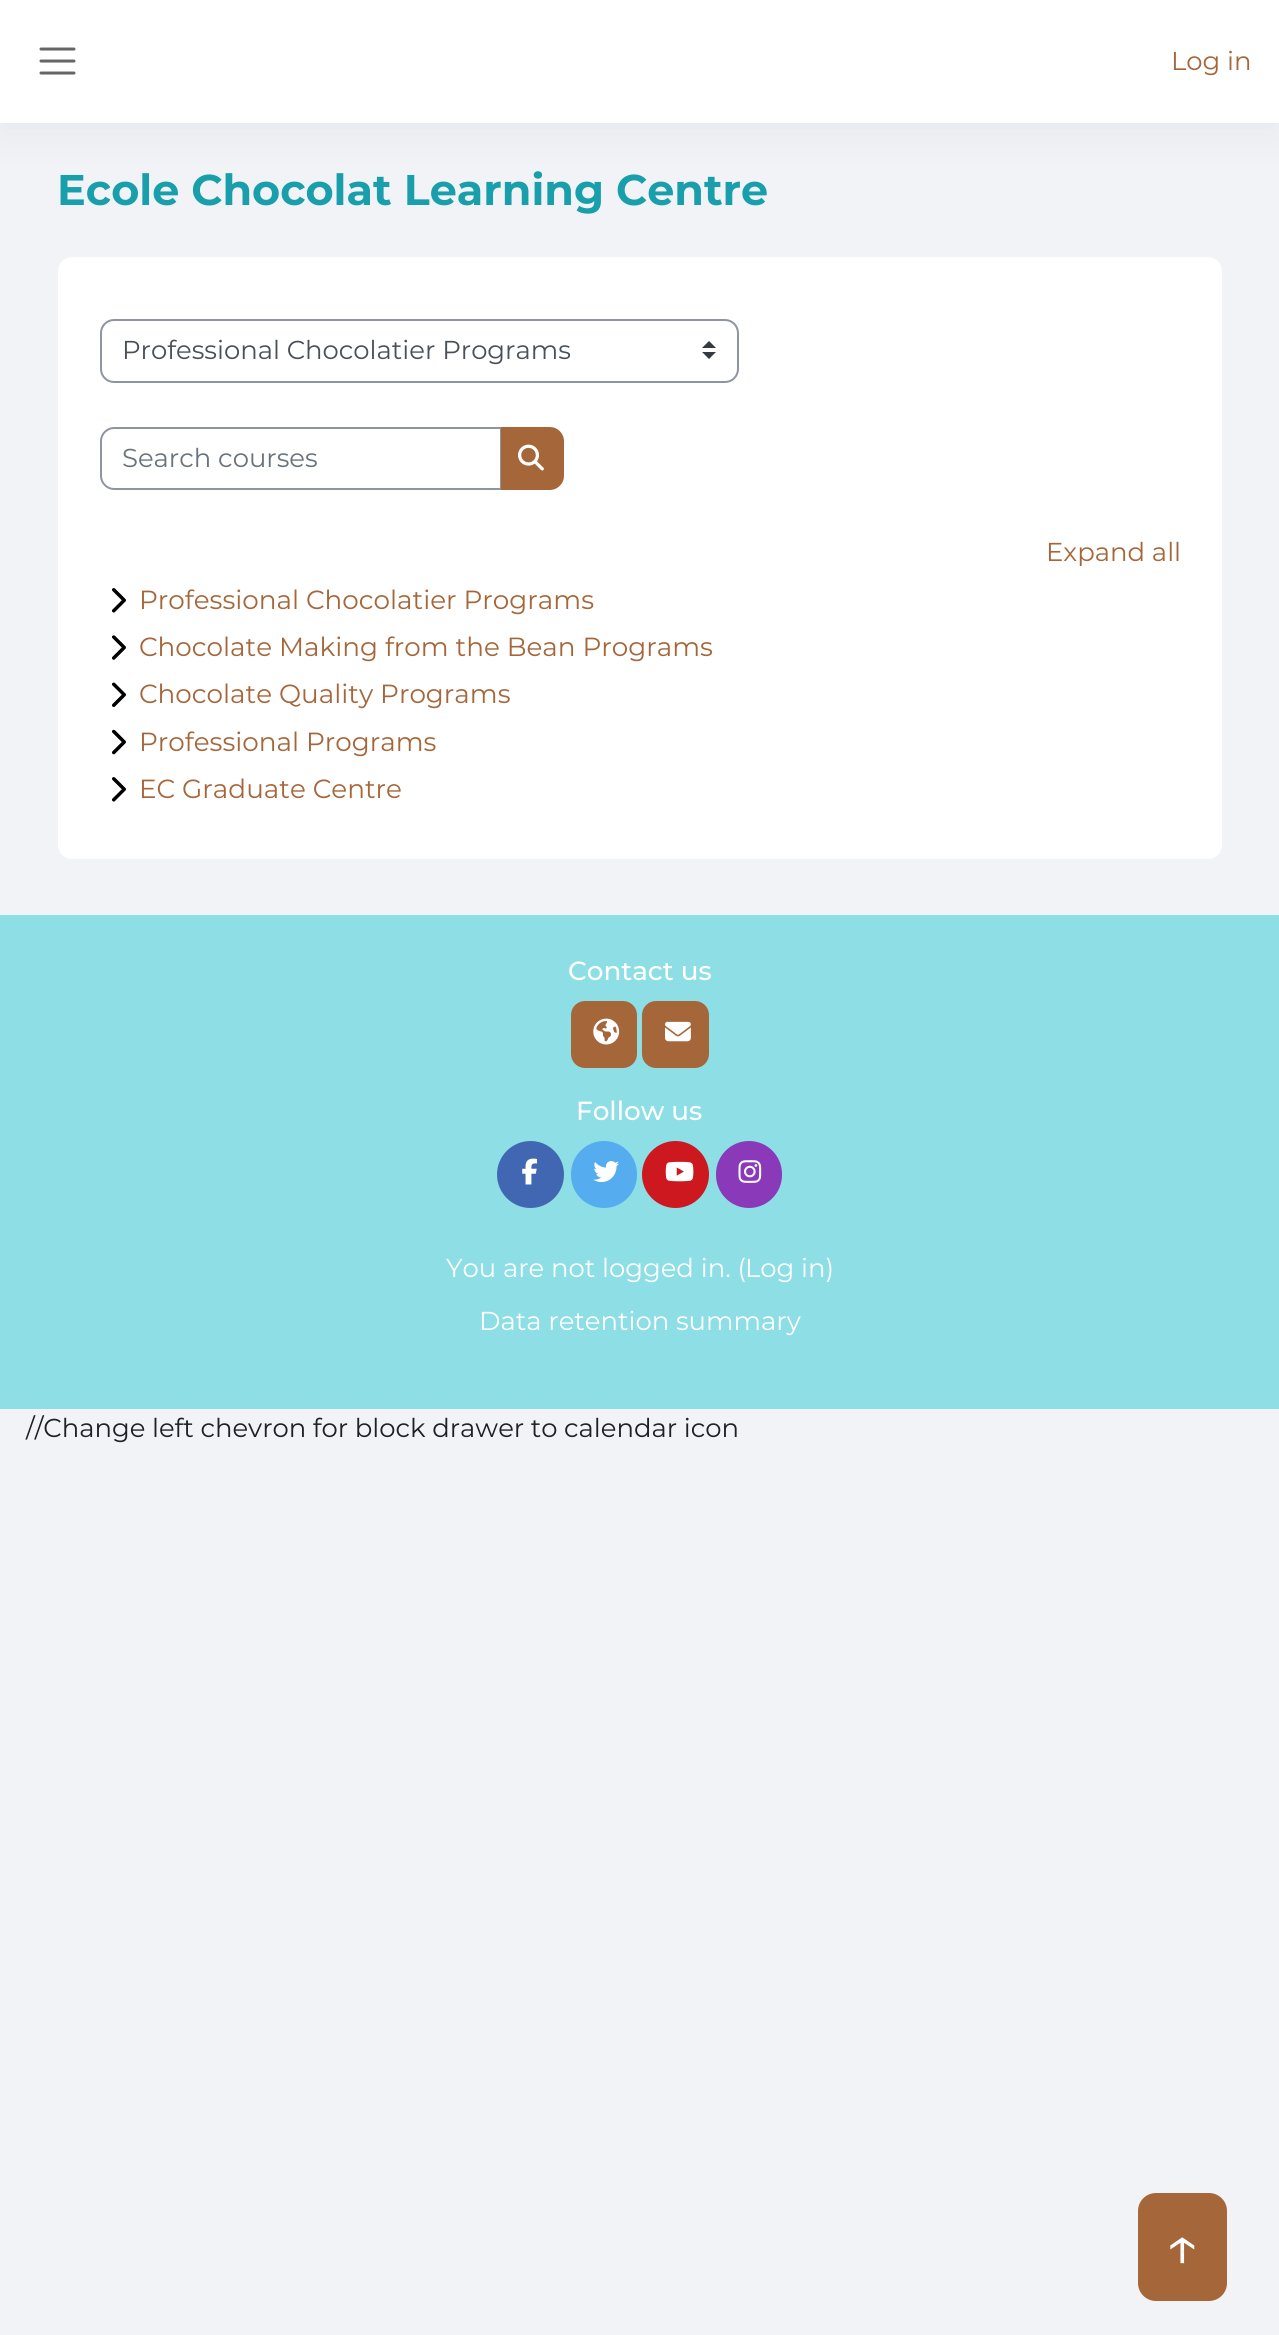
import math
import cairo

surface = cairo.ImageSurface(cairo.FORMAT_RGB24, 1279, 2335)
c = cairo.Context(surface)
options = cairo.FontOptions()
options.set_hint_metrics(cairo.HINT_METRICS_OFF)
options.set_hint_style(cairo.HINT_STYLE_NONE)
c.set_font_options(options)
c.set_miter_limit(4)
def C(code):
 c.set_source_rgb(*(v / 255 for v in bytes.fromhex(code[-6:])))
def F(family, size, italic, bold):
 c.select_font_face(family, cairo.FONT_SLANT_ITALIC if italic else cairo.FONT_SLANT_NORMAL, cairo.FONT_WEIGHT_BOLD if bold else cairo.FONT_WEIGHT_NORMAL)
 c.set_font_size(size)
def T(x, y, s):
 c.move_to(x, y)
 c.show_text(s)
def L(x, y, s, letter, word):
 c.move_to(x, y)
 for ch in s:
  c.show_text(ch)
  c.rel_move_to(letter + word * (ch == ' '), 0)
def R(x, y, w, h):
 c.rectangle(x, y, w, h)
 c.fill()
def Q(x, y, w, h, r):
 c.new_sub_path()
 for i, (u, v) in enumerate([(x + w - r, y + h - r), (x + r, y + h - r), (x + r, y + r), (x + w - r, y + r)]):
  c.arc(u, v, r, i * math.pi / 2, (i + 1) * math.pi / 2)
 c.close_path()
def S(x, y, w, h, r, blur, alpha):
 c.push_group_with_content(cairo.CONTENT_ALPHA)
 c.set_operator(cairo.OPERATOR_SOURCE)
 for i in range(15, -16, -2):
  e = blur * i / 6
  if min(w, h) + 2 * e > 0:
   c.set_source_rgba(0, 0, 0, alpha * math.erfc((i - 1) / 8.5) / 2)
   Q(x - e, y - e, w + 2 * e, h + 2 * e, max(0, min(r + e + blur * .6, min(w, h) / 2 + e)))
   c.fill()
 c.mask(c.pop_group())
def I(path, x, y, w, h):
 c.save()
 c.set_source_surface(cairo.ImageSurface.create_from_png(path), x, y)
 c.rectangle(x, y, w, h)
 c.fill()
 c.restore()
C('f2f3f7')
c.paint()
C('8c98a4')
S(0,11,1279,122,0,21,.13)
C('ffffff')
R(0,0,1279,123)
c.new_path()
c.move_to(41,49)
c.line_to(74,49)
c.move_to(41,61)
c.line_to(74,61)
c.move_to(41,73)
c.line_to(74,73)
C('666666')
c.set_line_width(3)
c.set_line_cap(cairo.LINE_CAP_ROUND)
c.stroke()
F('Montserrat',25.9,0,0)
C('a5663a')
T(1171,70,'Log in')
F('Montserrat',42.9,0,1)
C('189fab')
T(57,205,'Ecole Chocolat Learning Centre')
C('ffffff')
Q(58,257,1164,602,14)
c.fill()
C('343a40')
c.new_path()
c.move_to(709,341)
c.line_to(702,348)
c.line_to(716,348)
c.close_path()
c.move_to(709,359)
c.line_to(702,352)
c.line_to(716,352)
c.close_path()
c.fill()
Q(101,320,637,62,13)
C('8f959e')
c.set_line_width(2)
c.set_line_cap(cairo.LINE_CAP_BUTT)
c.stroke()
F('Montserrat',25.9,0,0)
C('495057')
T(122,359,'Professional Chocolatier Programs')
c.new_path()
c.move_to(114,428)
c.line_to(501,428)
c.line_to(501,489)
c.line_to(114,489)
c.curve_to(107,489,101,483,101,476)
c.line_to(101,441)
c.curve_to(101,434,107,428,114,428)
c.close_path()
C('8f959e')
c.stroke()
C('6a737b')
T(122,467,'Search courses')
C('a5663a')
c.new_path()
c.move_to(502,428)
c.line_to(550,428)
c.curve_to(557,428,563,434,563,441)
c.line_to(563,476)
c.curve_to(563,483,557,489,550,489)
c.line_to(502,489)
c.close_path()
c.fill_preserve()
c.stroke()
I('1.png',518,444,26,27)
T(1046,561,'Expand all')
I('2.png',112,588,14,25)
F('Montserrat',26.25,0,0)
T(139,609,'Professional Chocolatier Programs')
I('3.png',112,635,14,25)
T(139,656,'Chocolate Making from the Bean Programs')
I('4.png',112,682,14,25)
T(139,703,'Chocolate Quality Programs')
I('5.png',112,729,14,26)
T(139,751,'Professional Programs')
I('2.png',112,777,14,25)
T(139,798,'EC Graduate Centre')
F('Montserrat',25.9,0,0)
C('1d2125')
L(26,1437,'//Change left chevron for block drawer to calendar icon',0,-.25)
C('8edee5')
R(0,915,1279,494)
F('Montserrat Medium',26.25,0,0)
C('ffffff')
T(568,980,'Contact us')
C('a5663a')
Q(571,1001,66,67,14)
c.fill()
I('6.png',593,1018,27,27)
Q(642,1001,67,67,14)
c.fill()
I('7.png',665,1021,26,21)
C('ffffff')
T(576,1120,'Follow us')
C('4167b2')
c.new_path()
c.arc(530.5,1174.5,33.5,0,2 * math.pi)
c.fill()
I('8.png',522,1158,15,27)
C('55acee')
Q(571,1141,66,67,33)
c.fill()
I('9.png',593,1161,26,22)
C('cc181e')
c.arc(675.5,1174.5,33.5,0,2 * math.pi)
c.fill()
I('10.png',665,1161,29,21)
C('8a3ab9')
Q(716,1141,66,67,33)
c.fill()
I('11.png',738,1160,24,23)
F('Montserrat',25.9,0,0)
C('ffffff')
T(446,1277,'You are not logged in. (')
T(745,1277,'Log in)')
T(479,1330,'Data retention summary')
C('a5663a')
Q(1138,2193,89,108,18)
c.fill()
F('Montserrat',61,0,0)
C('ffffff')
T(1164,2267,'↑')
surface.write_to_png('o.png')
